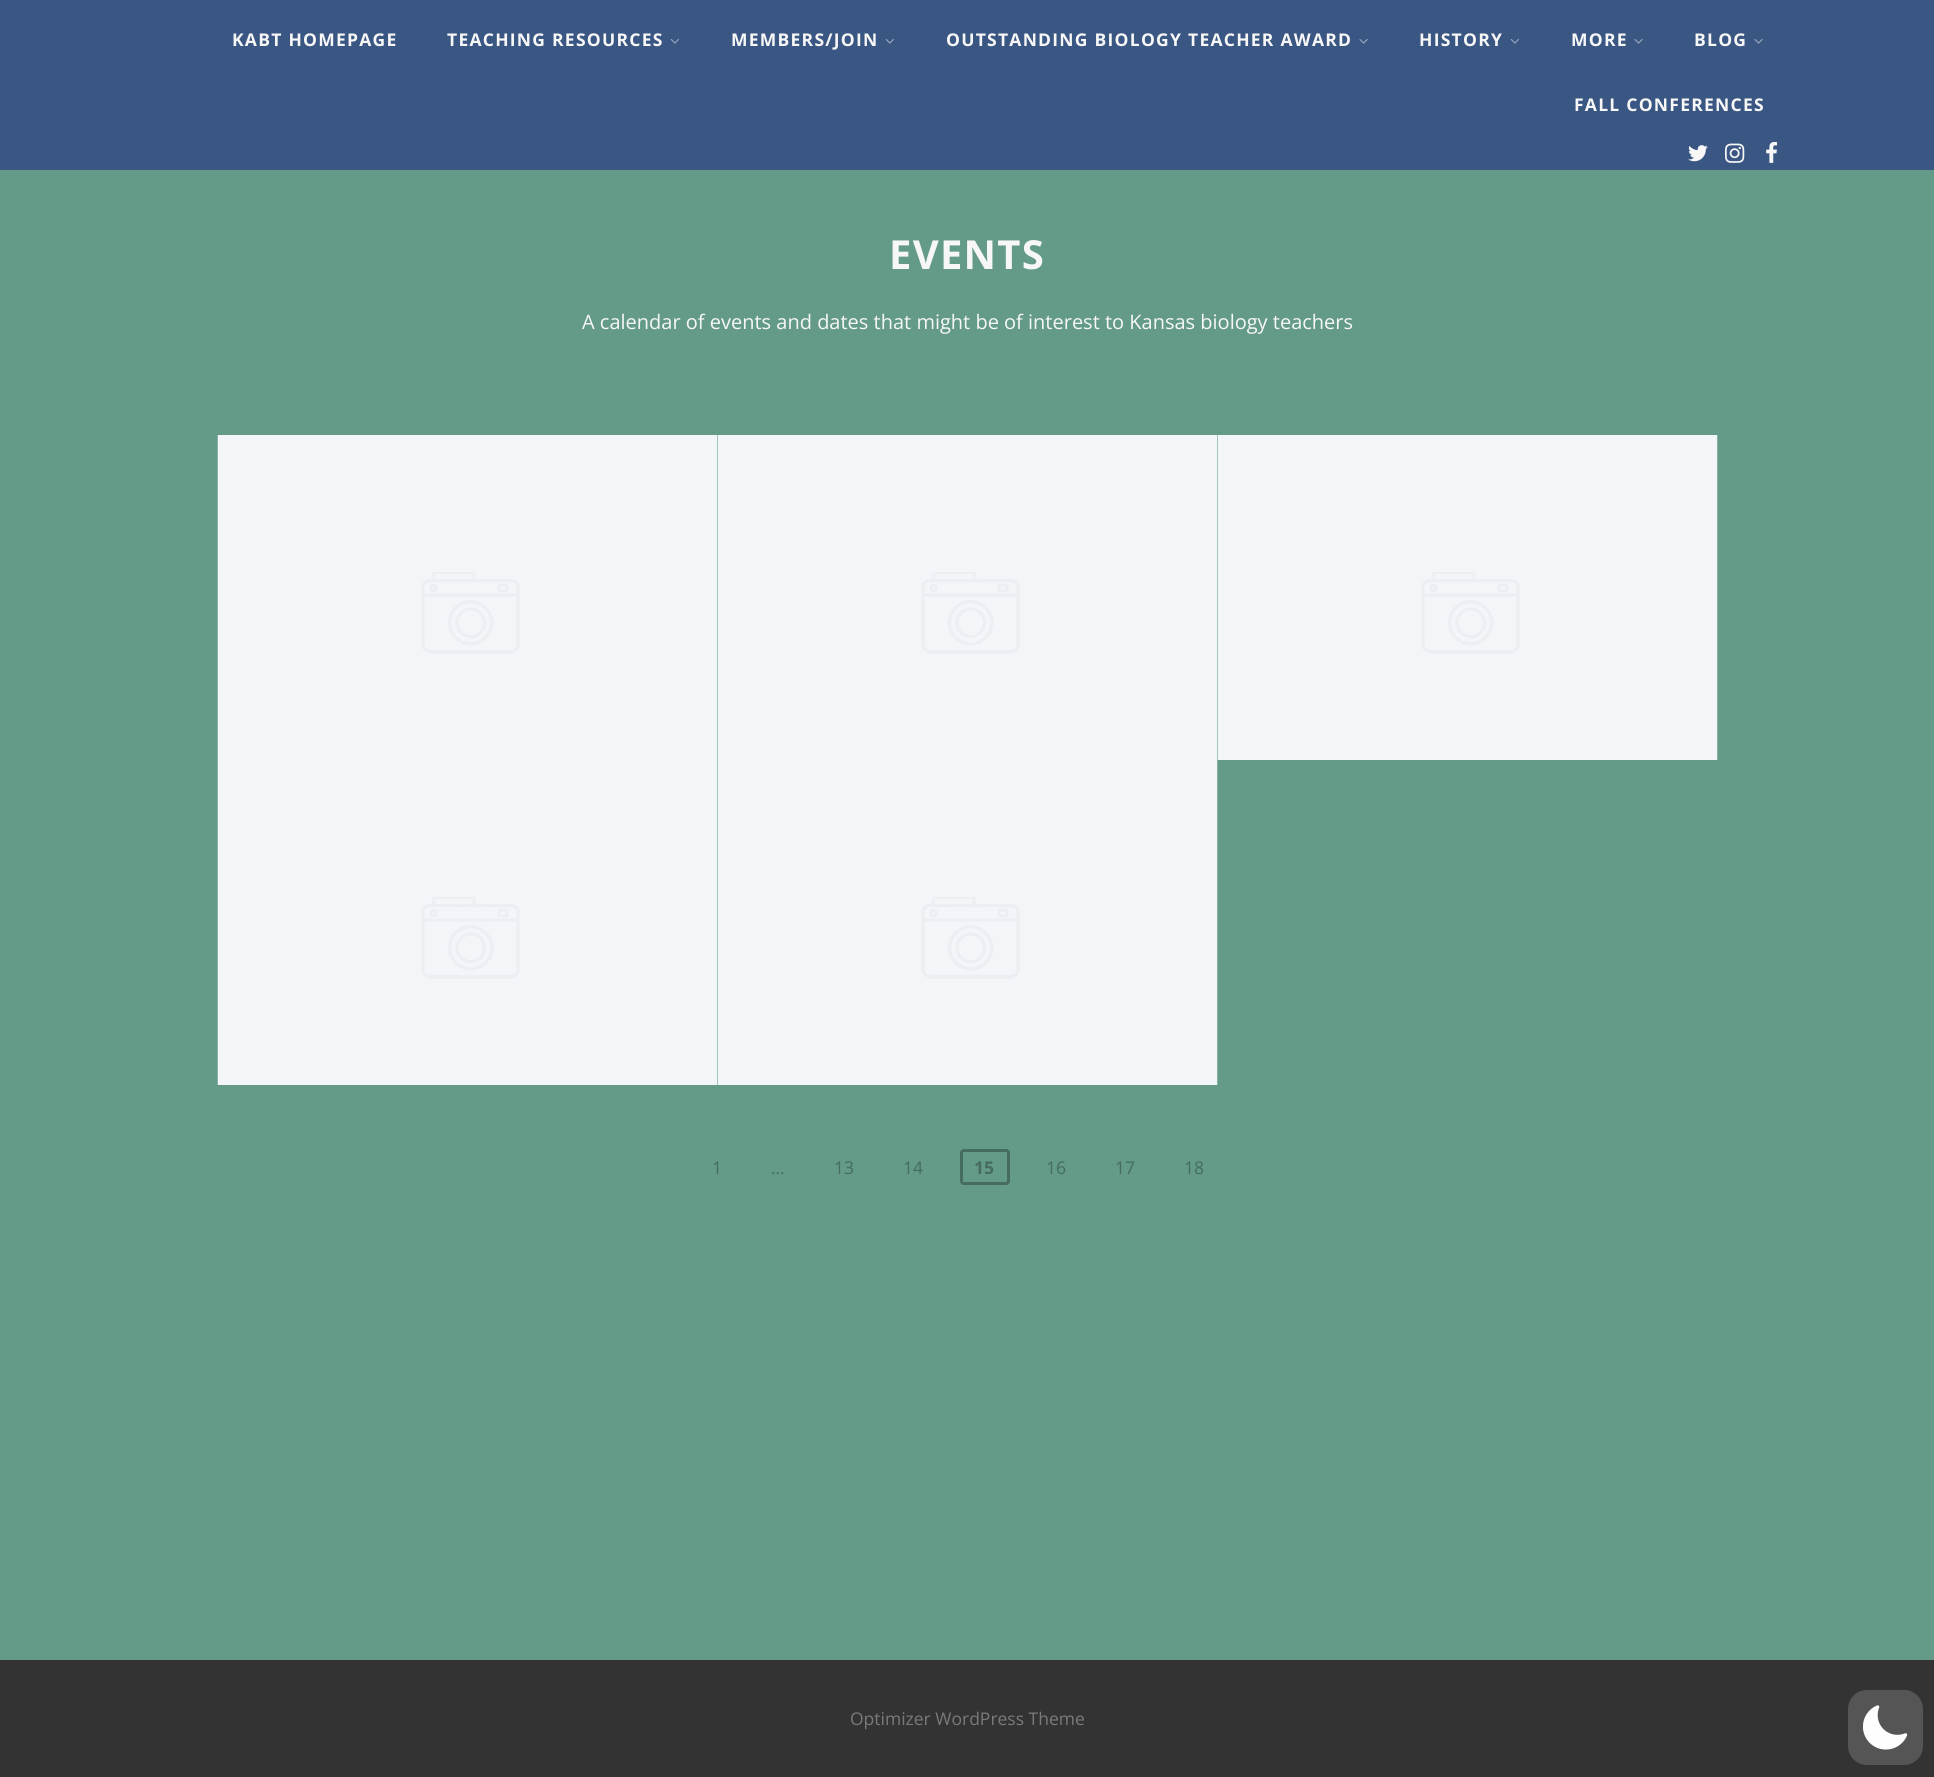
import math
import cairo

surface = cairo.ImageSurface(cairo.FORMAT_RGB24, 1934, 1777)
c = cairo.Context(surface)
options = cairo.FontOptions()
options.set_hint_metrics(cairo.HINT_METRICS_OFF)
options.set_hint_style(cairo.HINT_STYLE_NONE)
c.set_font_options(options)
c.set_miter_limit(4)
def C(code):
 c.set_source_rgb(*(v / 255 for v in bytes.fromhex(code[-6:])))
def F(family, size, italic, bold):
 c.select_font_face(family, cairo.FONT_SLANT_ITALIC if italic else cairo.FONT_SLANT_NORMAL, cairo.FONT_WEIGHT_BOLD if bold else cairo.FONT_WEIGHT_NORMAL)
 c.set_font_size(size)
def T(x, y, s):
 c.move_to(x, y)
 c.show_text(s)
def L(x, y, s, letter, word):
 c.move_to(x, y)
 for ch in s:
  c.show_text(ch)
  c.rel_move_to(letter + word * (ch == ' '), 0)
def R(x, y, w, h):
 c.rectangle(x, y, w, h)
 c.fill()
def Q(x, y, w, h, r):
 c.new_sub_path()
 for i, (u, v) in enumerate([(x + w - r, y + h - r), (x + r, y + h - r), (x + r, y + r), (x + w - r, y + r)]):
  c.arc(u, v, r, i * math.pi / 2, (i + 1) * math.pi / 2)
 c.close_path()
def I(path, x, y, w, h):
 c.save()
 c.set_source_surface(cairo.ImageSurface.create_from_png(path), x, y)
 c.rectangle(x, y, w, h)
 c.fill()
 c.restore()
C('639a88')
c.paint()
C('3a5683')
R(0,0,1934,170)
F('Open Sans',17.5,0,1)
C('f7f7f7')
L(232,46,'KABT HOMEPAGE',1.25,0)
L(447,46,'TEACHING RESOURCES',1.25,0)
I('1.png',670,38,9,6)
L(731,46,'MEMBERS/JOIN',1.25,0)
I('1.png',885,38,9,6)
L(946,46,'OUTSTANDING BIOLOGY TEACHER AWARD',1.25,0)
I('2.png',1359,39,9,5)
L(1419,46,'HISTORY',1.25,0)
I('1.png',1510,38,9,6)
L(1571,46,'MORE',1.25,0)
I('2.png',1634,39,9,5)
L(1694,46,'BLOG',1.25,0)
I('2.png',1754,39,9,5)
L(1574,111,'FALL CONFERENCES',1.25,0)
I('3.png',1688,145,20,17)
I('4.png',1725,143,20,20)
I('5.png',1766,142,12,21)
F('Open Sans',40,0,1)
L(889,269,'EVENTS',1.25,0)
F('Open Sans',20,0,0)
T(582,329,'A calendar of events and dates that might be of interest to Kansas biology teachers')
I('6.png',217,435,501,325)
I('7.png',717,435,501,325)
I('7.png',1217,435,501,325)
I('6.png',217,760,501,325)
I('7.png',717,760,501,325)
F('Open Sans',17.5,0,0)
C('456c5f')
T(712,1174,'1')
T(771,1174,'…')
T(834,1174,'13')
T(903,1174,'14')
Q(961.5,1150.5,47,33,2.5)
c.set_line_width(3)
c.stroke()
F('Open Sans',17.5,0,1)
T(974,1174,'15')
F('Open Sans',17.5,0,0)
T(1046,1174,'16')
T(1115,1174,'17')
T(1184,1174,'18')
C('333333')
R(0,1660,1934,117)
C('7a7a7a')
T(850,1725,'Optimizer WordPress Theme')
C('555555')
Q(1848,1690,75,75,19)
c.fill()
I('8.png',1863,1705,45,45)
surface.write_to_png('o.png')
